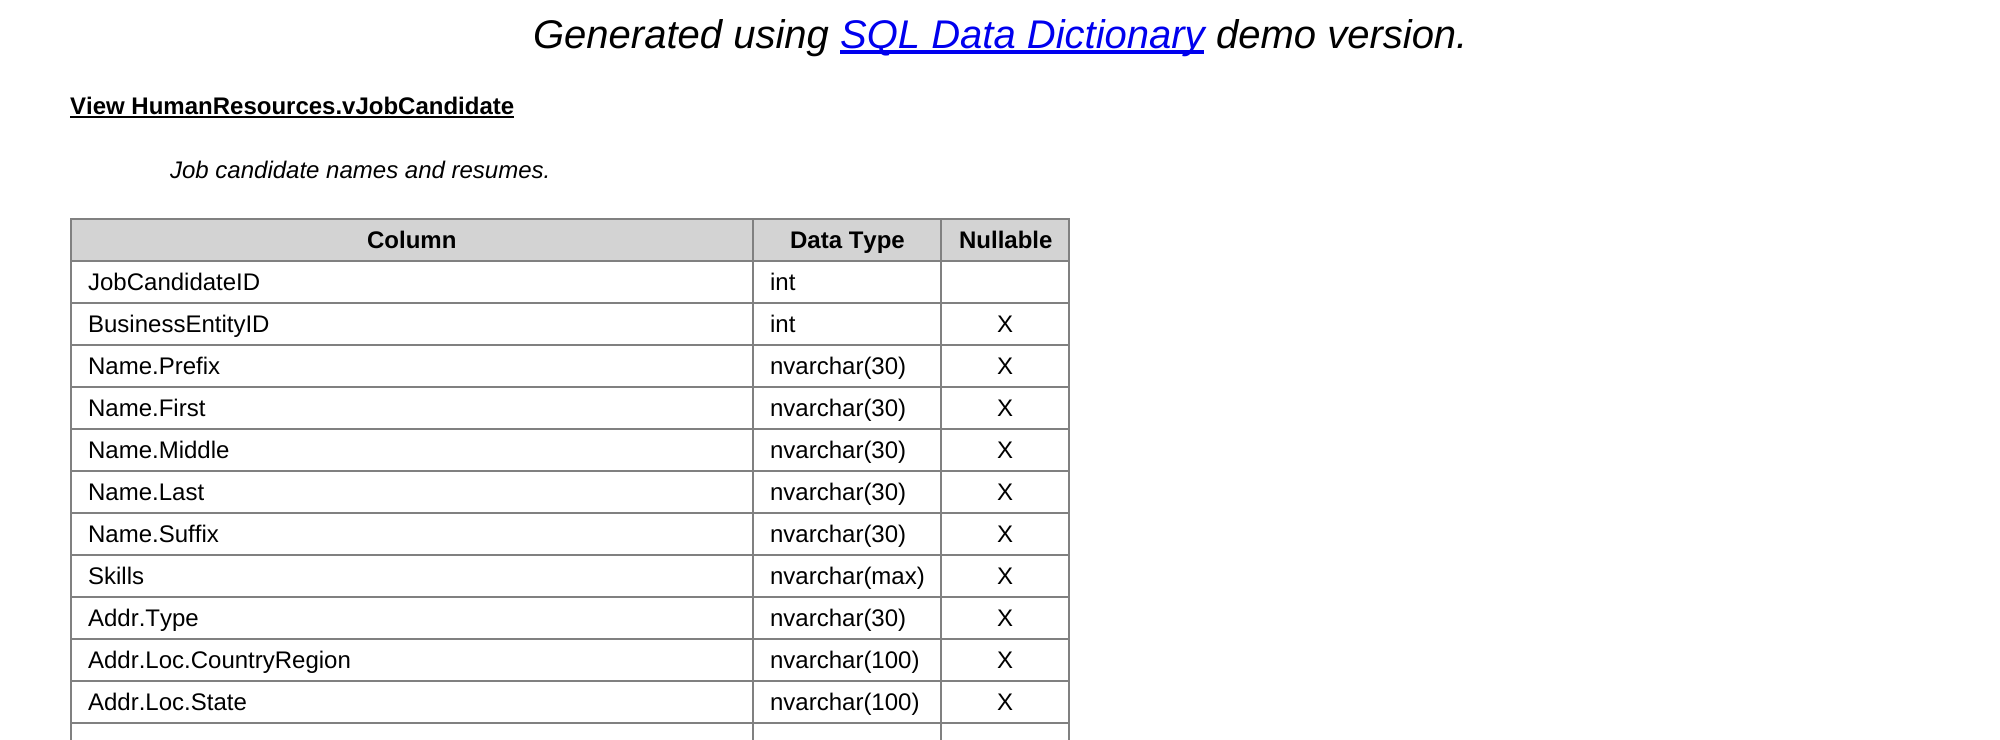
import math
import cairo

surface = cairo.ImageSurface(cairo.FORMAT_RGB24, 2000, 740)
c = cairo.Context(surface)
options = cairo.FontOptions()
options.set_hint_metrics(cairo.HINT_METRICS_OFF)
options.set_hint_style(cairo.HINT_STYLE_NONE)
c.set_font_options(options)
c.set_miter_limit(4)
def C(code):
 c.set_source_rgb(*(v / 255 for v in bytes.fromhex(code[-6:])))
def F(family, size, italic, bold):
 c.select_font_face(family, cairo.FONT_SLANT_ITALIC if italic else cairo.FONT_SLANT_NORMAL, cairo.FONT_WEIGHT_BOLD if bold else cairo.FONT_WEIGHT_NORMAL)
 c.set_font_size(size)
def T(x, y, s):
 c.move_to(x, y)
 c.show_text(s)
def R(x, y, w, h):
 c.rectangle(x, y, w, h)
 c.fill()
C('ffffff')
c.paint()
F('Liberation Sans',40,1,0)
C('000000')
T(533,48,'Generated using')
C('0000ee')
R(840,50,364,4)
T(840,48,'SQL Data Dictionary')
C('000000')
T(1216,48,'demo version.')
F('Liberation Sans',24,0,1)
T(70,114,'View HumanResources.vJobCandidate')
R(70,116,444,2)
F('Liberation Sans',24,1,0)
T(170,178,'Job candidate names and resumes.')
C('808080')
R(70,218,1000,2)
R(1068,218,2,522)
R(70,218,2,522)
C('d3d3d3')
R(72,220,996,40)
F('Liberation Sans',24,0,1)
C('000000')
T(367,248,'Column')
C('808080')
R(940,260,130,2)
R(940,302,130,2)
R(940,344,130,2)
R(940,386,130,2)
R(940,428,130,2)
R(940,470,130,2)
R(940,512,130,2)
R(940,554,130,2)
R(940,596,130,2)
R(940,638,130,2)
R(940,680,130,2)
R(940,722,130,2)
R(940,722,2,18)
R(752,722,190,2)
R(940,680,2,44)
R(752,680,190,2)
R(940,638,2,44)
R(752,638,190,2)
R(940,596,2,44)
R(752,596,190,2)
R(940,554,2,44)
R(752,554,190,2)
R(940,512,2,44)
R(752,512,190,2)
R(940,470,2,44)
R(752,470,190,2)
R(940,428,2,44)
R(752,428,190,2)
R(940,386,2,44)
R(752,386,190,2)
R(940,344,2,44)
R(752,344,190,2)
R(940,302,2,44)
R(752,302,190,2)
R(940,260,2,44)
R(752,260,190,2)
R(752,722,2,18)
R(70,722,684,2)
R(752,680,2,44)
R(70,680,684,2)
R(752,638,2,44)
R(70,638,684,2)
R(752,596,2,44)
R(70,596,684,2)
R(752,554,2,44)
R(70,554,684,2)
R(752,512,2,44)
R(70,512,684,2)
R(752,470,2,44)
R(70,470,684,2)
R(752,428,2,44)
R(70,428,684,2)
R(752,386,2,44)
R(70,386,684,2)
R(752,344,2,44)
R(70,344,684,2)
R(752,302,2,44)
R(70,302,684,2)
R(752,260,2,44)
R(70,260,684,2)
R(752,218,2,44)
C('000000')
T(790,248,'Data Type')
C('808080')
R(940,218,2,44)
C('000000')
T(959,248,'Nullable')
F('Liberation Sans',24,0,0)
T(88,290,'JobCandidateID')
T(770,290,'int')
T(88,332,'BusinessEntityID')
T(770,332,'int')
T(997,332,'X')
T(88,374,'Name.Prefix')
T(770,374,'nvarchar(30)')
T(997,374,'X')
T(88,416,'Name.First')
T(770,416,'nvarchar(30)')
T(997,416,'X')
T(88,458,'Name.Middle')
T(770,458,'nvarchar(30)')
T(997,458,'X')
T(88,500,'Name.Last')
T(770,500,'nvarchar(30)')
T(997,500,'X')
T(88,542,'Name.Suffix')
T(770,542,'nvarchar(30)')
T(997,542,'X')
T(88,584,'Skills')
T(770,584,'nvarchar(max)')
T(997,584,'X')
T(88,626,'Addr.Type')
T(770,626,'nvarchar(30)')
T(997,626,'X')
T(88,668,'Addr.Loc.CountryRegion')
T(770,668,'nvarchar(100)')
T(997,668,'X')
T(88,710,'Addr.Loc.State')
T(770,710,'nvarchar(100)')
T(997,710,'X')
surface.write_to_png('o.png')
